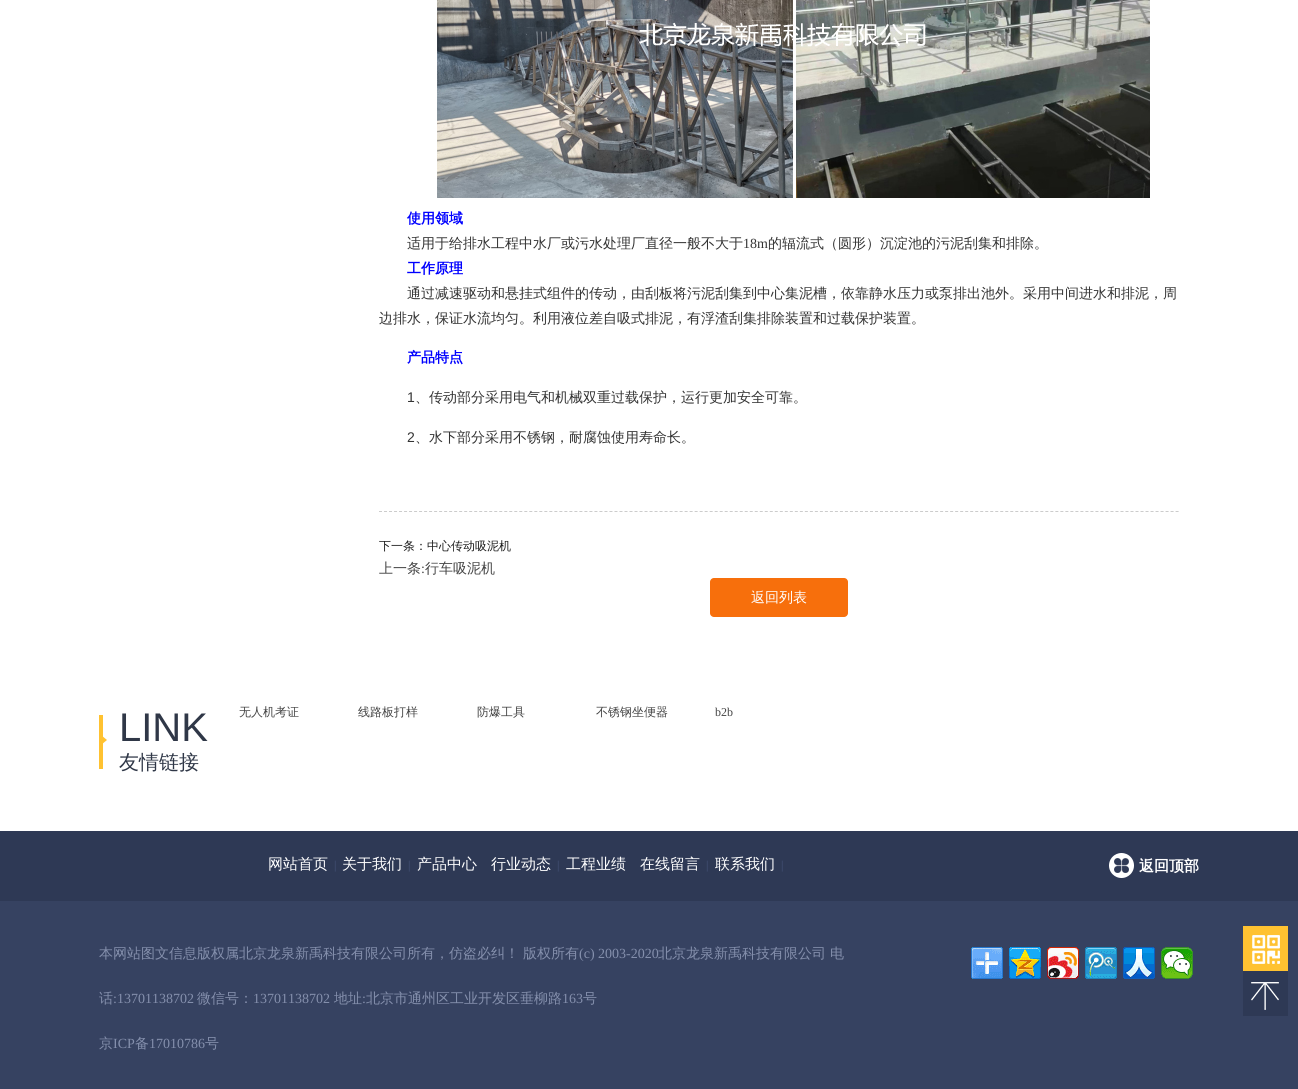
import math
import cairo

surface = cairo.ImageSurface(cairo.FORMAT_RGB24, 1298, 1089)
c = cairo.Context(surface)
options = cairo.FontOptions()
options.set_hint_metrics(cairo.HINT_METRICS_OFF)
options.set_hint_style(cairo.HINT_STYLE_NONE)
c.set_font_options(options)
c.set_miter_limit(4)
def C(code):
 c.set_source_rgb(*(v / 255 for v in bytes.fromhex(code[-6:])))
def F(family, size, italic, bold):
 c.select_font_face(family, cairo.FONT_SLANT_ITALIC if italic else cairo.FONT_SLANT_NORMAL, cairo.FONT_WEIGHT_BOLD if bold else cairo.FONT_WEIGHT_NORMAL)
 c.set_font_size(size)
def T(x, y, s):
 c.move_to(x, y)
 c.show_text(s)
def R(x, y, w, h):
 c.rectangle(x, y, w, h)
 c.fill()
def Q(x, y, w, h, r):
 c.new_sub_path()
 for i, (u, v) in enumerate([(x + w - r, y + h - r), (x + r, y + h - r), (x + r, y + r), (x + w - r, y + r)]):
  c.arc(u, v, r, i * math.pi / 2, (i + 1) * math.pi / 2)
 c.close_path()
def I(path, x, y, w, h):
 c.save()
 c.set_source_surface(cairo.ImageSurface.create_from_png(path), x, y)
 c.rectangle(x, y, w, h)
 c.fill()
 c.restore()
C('ffffff')
c.paint()
c.new_path()
c.move_to(379,511.5)
c.line_to(1179,511.5)
C('cccccc')
c.set_line_width(1)
c.set_dash([3,2.01])
c.stroke()
I('1.png',437,0,713,198)
F('WenQuanYi Zen Hei',14,0,1)
C('0000ff')
T(407,223,'使用领域')
F('WenQuanYi Zen Hei Medium',14,0,0)
C('333333')
T(407,248,'适用于给排水工程中水厂或污水处理厂直径一般不大于')
F('Liberation Serif',14,0,0)
T(743,248,'18m')
F('WenQuanYi Zen Hei Medium',14,0,0)
T(768,248,'的辐流式（圆形）沉淀池的污泥刮集和排除。')
F('WenQuanYi Zen Hei',14,0,1)
C('0000ff')
T(407,273,'工作原理')
F('WenQuanYi Zen Hei Medium',14,0,0)
C('333333')
T(407,298,'通过减速驱动和悬挂式组件的传动，由刮板将污泥刮集到中心集泥槽，依靠静水压力或泵排出池外。采用中间进水和排泥，周')
T(379,323,'边排水，保证水流均匀。利用液位差自吸式排泥，有浮渣刮集排除装置和过载保护装置。')
F('WenQuanYi Zen Hei',14,0,1)
C('0000ff')
T(407,362,'产品特点')
F('Liberation Sans',14,0,0)
C('333333')
T(407,402,'1')
F('WenQuanYi Zen Hei Medium',14,0,0)
T(415,402,'、传动部分采用电气和机械双重过载保护，运行更加安全可靠。')
F('Liberation Sans',14,0,0)
T(407,442,'2')
F('WenQuanYi Zen Hei Medium',14,0,0)
T(415,442,'、水下部分采用不锈钢，耐腐蚀使用寿命长。')
F('WenQuanYi Zen Hei Medium',12,0,0)
C('1d1d1d')
T(379,550,'下一条：中心传动吸泥机')
F('WenQuanYi Zen Hei Medium',14,0,0)
C('444444')
T(379,573,'上一条')
F('Liberation Serif',14,0,0)
T(421,573,':')
F('WenQuanYi Zen Hei Medium',14,0,0)
T(425,573,'行车吸泥机')
C('f76f0c')
Q(710,578,138,39,4)
c.fill()
C('ffffff')
T(751,602,'返回列表')
I('2.png',99,715,8,54)
F('Liberation Sans',40,0,0)
C('2f3747')
T(119,741,'LINK')
F('WenQuanYi Zen Hei Medium',20,0,0)
T(119,769,'友情链接')
F('WenQuanYi Zen Hei Medium',12,0,0)
C('444444')
T(239,716,'无人机考证')
T(358,716,'线路板打样')
T(477,716,'防爆工具')
T(596,716,'不锈钢坐便器')
F('Liberation Serif',12,0,0)
T(715,716,'b2b')
C('2e3955')
R(0,831,1298,70)
F('WenQuanYi Zen Hei Medium',15,0,0)
C('ffffff')
T(268,869,'网站首页')
F('Liberation Serif',12,0,0)
C('445277')
T(334,869,'|')
F('WenQuanYi Zen Hei Medium',15,0,0)
C('ffffff')
T(342,869,'关于我们')
F('Liberation Serif',12,0,0)
C('445277')
T(408,869,'|')
F('WenQuanYi Zen Hei Medium',15,0,0)
C('ffffff')
T(417,869,'产品中心')
T(491,869,'行业动态')
F('Liberation Serif',12,0,0)
C('445277')
T(557,869,'|')
F('WenQuanYi Zen Hei Medium',15,0,0)
C('ffffff')
T(566,869,'工程业绩')
T(640,869,'在线留言')
F('Liberation Serif',12,0,0)
C('445277')
T(706,869,'|')
F('WenQuanYi Zen Hei Medium',15,0,0)
C('ffffff')
T(715,869,'联系我们')
F('Liberation Serif',12,0,0)
C('445277')
T(781,869,'|')
I('3.png',1109,853,25,25)
F('WenQuanYi Zen Hei',15,0,1)
C('ffffff')
T(1139,871,'返回顶部')
C('364261')
R(0,901,1298,188)
F('WenQuanYi Zen Hei Medium',14,0,0)
C('848fac')
T(99,958,'本网站图文信息版权属北京龙泉新禹科技有限公司所有，仿盗必纠！')
T(523,958,'版权所有')
F('Liberation Serif',14,0,0)
T(579,958,'(c) 2003-2020')
F('WenQuanYi Zen Hei Medium',14,0,0)
T(658,958,'北京龙泉新禹科技有限公司')
T(830,958,'电')
T(99,1003,'话')
F('Liberation Serif',14,0,0)
T(113,1003,':13701138702')
F('WenQuanYi Zen Hei Medium',14,0,0)
T(197,1003,'微信号：')
F('Liberation Serif',14,0,0)
T(253,1003,'13701138702')
F('WenQuanYi Zen Hei Medium',14,0,0)
T(334,1003,'地址')
F('Liberation Serif',14,0,0)
T(362,1003,':')
F('WenQuanYi Zen Hei Medium',14,0,0)
T(366,1003,'北京市通州区工业开发区垂柳路')
F('Liberation Serif',14,0,0)
T(562,1003,'163')
F('WenQuanYi Zen Hei Medium',14,0,0)
T(583,1003,'号')
T(99,1048,'京')
F('Liberation Serif',14,0,0)
T(113,1048,'ICP')
F('WenQuanYi Zen Hei Medium',14,0,0)
T(135,1048,'备')
F('Liberation Serif',14,0,0)
T(149,1048,'17010786')
F('WenQuanYi Zen Hei Medium',14,0,0)
T(205,1048,'号')
I('4.png',971,947,32,32)
I('5.png',1009,947,32,32)
I('6.png',1047,947,32,32)
I('7.png',1085,947,32,32)
I('8.png',1123,947,32,32)
I('9.png',1161,947,32,32)
I('10.png',1243,926,45,45)
I('11.png',1243,971,45,45)
surface.write_to_png('o.png')
